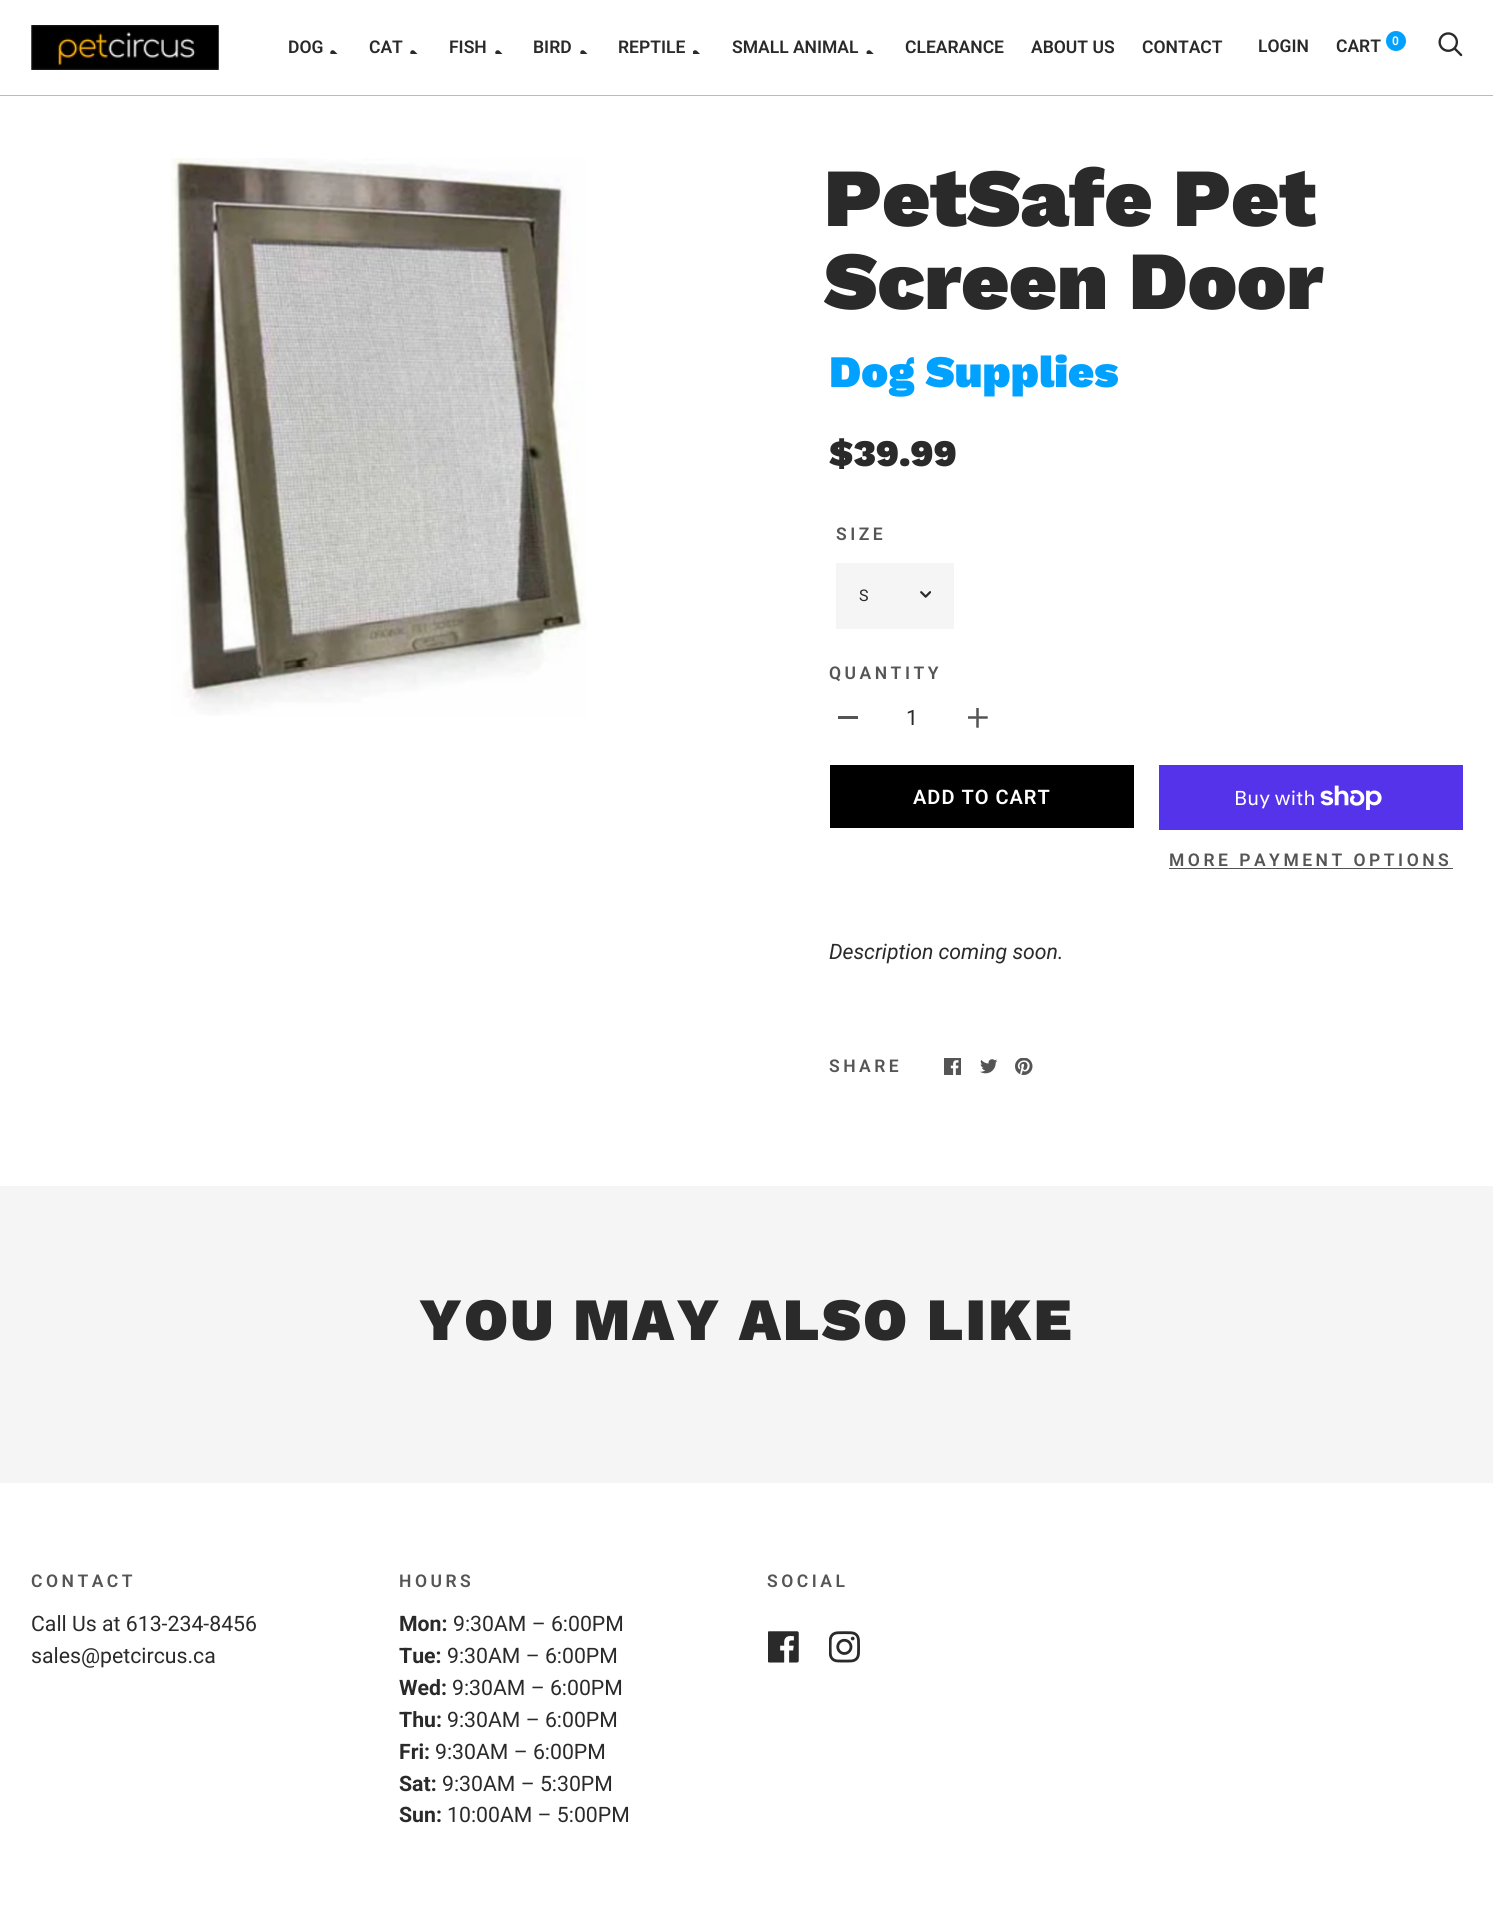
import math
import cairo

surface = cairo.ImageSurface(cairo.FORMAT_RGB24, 1493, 1905)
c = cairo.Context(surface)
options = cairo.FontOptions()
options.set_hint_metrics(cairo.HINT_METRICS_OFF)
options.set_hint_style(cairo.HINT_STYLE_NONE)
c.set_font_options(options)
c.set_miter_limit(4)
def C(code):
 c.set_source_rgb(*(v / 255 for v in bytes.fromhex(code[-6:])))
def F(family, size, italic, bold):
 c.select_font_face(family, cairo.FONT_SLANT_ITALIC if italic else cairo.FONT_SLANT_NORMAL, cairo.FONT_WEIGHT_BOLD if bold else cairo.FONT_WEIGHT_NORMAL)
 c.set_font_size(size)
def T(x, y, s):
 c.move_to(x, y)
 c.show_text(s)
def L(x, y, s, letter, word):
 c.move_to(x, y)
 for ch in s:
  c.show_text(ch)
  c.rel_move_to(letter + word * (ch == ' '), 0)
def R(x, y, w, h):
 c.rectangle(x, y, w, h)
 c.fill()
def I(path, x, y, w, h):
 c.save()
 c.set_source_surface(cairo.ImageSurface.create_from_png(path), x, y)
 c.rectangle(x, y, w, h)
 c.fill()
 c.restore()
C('ffffff')
c.paint()
C('bbbbbb')
c.new_path()
c.move_to(0,95)
c.line_to(0,96)
c.line_to(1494,96)
c.line_to(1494,1)
c.line_to(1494,95)
c.close_path()
c.fill()
I('1.png',31,25,188,45)
F('Roboto SemiBold',17.5,0,0)
C('2a2a2a')
T(288,53,'DOG')
I('2.png',330,50,8,4)
T(369,53,'CAT')
I('2.png',410,50,8,4)
T(449,53,'FISH')
I('2.png',495,50,8,4)
T(533,53,'BIRD')
I('2.png',580,50,8,4)
T(618,53,'REPTILE')
I('3.png',693,50,7,4)
T(732,53,'SMALL ANIMAL')
I('4.png',866,50,8,4)
T(905,53,'CLEARANCE')
T(1031,53,'ABOUT US')
T(1142,53,'CONTACT')
T(1258,52,'LOGIN')
T(1336,52,'CART')
C('00a1ff')
c.new_path()
c.arc(1396,41,10,0,2 * math.pi)
c.fill()
F('Roboto SemiBold',12,0,0)
C('ffffff')
T(1392,45,'0')
I('5.png',1438,32,25,25)
I('6.png',171,158,416,558)
F('Work Sans Black',82.5,0,0)
C('2a2a2a')
T(824,226,'PetSafe Pet')
T(824,309,'Screen Door')
F('Work Sans Black',45,0,0)
C('00a1ff')
T(829,387,'Dog Supplies')
F('Work Sans Black',37.5,0,0)
C('2a2a2a')
T(829,466,'$39.99')
F('Roboto SemiBold',17.5,0,0)
C('555555')
L(836,540,'SIZE',3.5,0)
C('f5f5f5')
R(836,563,118,66)
F('Roboto',16,0,0)
C('2a2a2a')
L(859,601,'S',1,0)
I('7.png',920,591,11,7)
F('Roboto SemiBold',17.5,0,0)
C('555555')
L(829,679,'QUANTITY',3.5,0)
R(838,716,20,3)
F('Roboto',21.25,0,0)
C('2a2a2a')
T(906,725,'1')
I('8.png',968,708,20,20)
C('000000')
R(830,765,304,63)
F('Roboto SemiBold',20,0,0)
C('ffffff')
L(913,804,'ADD TO CART',1,0)
C('5433eb')
R(1159,765,304,65)
F('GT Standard',20,0,0)
C('ffffff')
T(1234,805,'Buy with')
I('9.png',1320,785,62,25)
F('Roboto SemiBold',17.5,0,0)
C('555555')
L(1169,866,'MORE PAYMENT OPTIONS',3.5,0)
R(1169,868,284,1)
F('Roboto',21.25,1,0)
C('2a2a2a')
T(829,959,'Description coming soon.')
F('Roboto SemiBold',17.5,0,0)
C('555555')
L(829,1072,'SHARE',3.5,0)
I('10.png',944,1058,17,17)
I('11.png',980,1059,18,15)
I('12.png',1015,1058,18,17)
C('f5f5f5')
R(0,1186,1493,297)
F('Work Sans Black',60,0,0)
C('2a2a2a')
L(419,1340,'YOU MAY ALSO LIKE',2.5,0)
F('Roboto SemiBold',17.5,0,0)
C('555555')
L(31,1587,'CONTACT',3.5,0)
F('Roboto',21.25,0,0)
C('2a2a2a')
T(31,1631,'Call Us at 613-234-8456')
T(31,1663,'sales@petcircus.ca')
F('Roboto SemiBold',17.5,0,0)
C('555555')
L(399,1587,'HOURS',3.5,0)
F('Roboto',21.25,0,1)
C('2a2a2a')
T(399,1631,'Mon:')
F('Roboto',21.25,0,0)
T(453,1631,'9:30AM – 6:00PM')
F('Roboto',21.25,0,1)
T(399,1663,'Tue:')
F('Roboto',21.25,0,0)
T(447,1663,'9:30AM – 6:00PM')
F('Roboto',21.25,0,1)
T(399,1695,'Wed:')
F('Roboto',21.25,0,0)
T(452,1695,'9:30AM – 6:00PM')
F('Roboto',21.25,0,1)
T(399,1727,'Thu:')
F('Roboto',21.25,0,0)
T(447,1727,'9:30AM – 6:00PM')
F('Roboto',21.25,0,1)
T(399,1759,'Fri:')
F('Roboto',21.25,0,0)
T(435,1759,'9:30AM – 6:00PM')
F('Roboto',21.25,0,1)
T(399,1791,'Sat:')
F('Roboto',21.25,0,0)
T(442,1791,'9:30AM – 5:30PM')
F('Roboto',21.25,0,1)
T(399,1822,'Sun:')
F('Roboto',21.25,0,0)
T(447,1822,'10:00AM – 5:00PM')
F('Roboto SemiBold',17.5,0,0)
C('555555')
L(767,1587,'SOCIAL',3.5,0)
I('13.png',768,1631,31,32)
I('14.png',829,1631,31,32)
surface.write_to_png('o.png')
